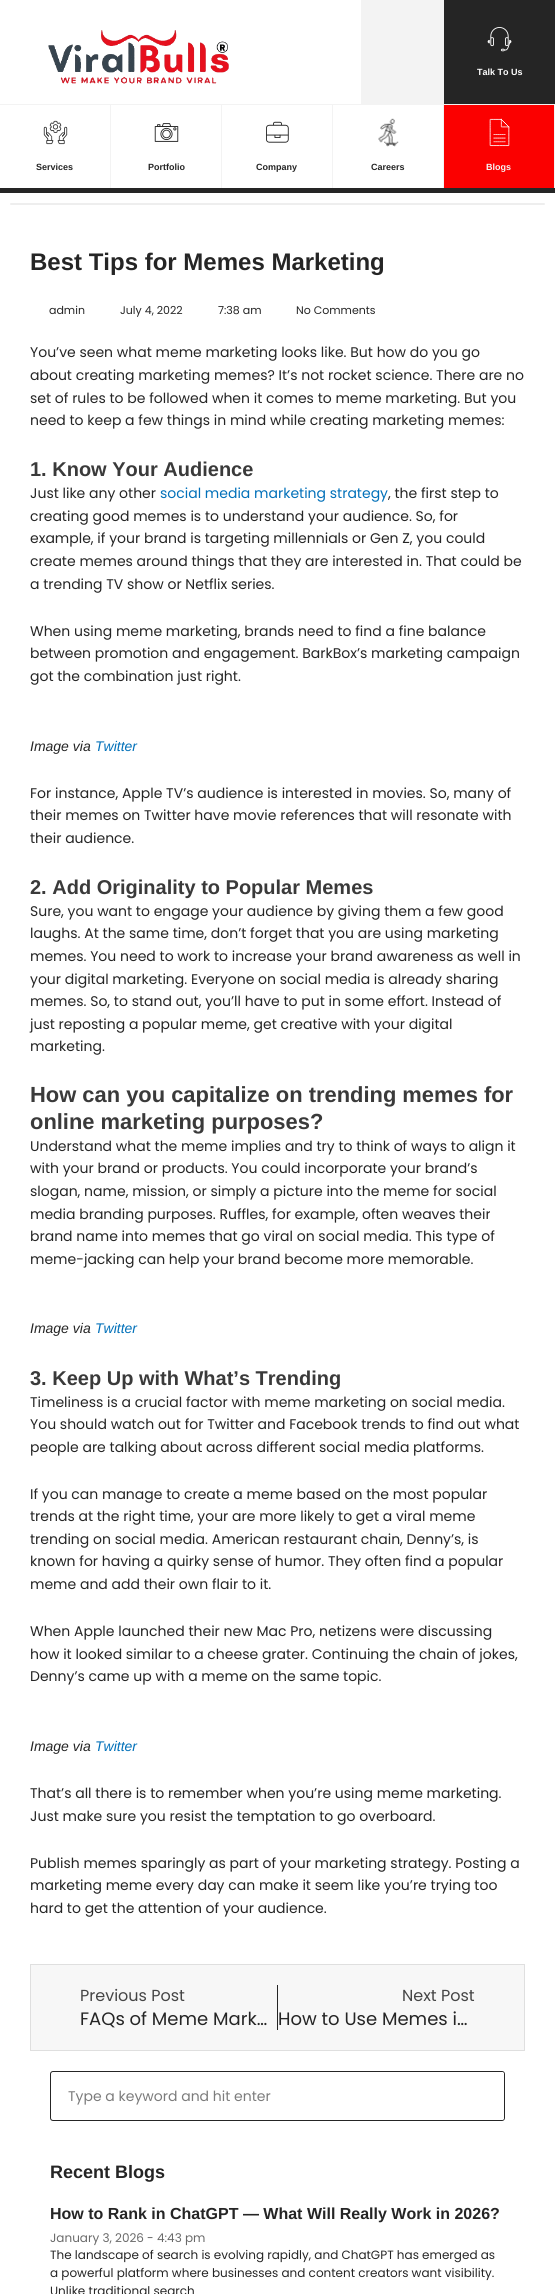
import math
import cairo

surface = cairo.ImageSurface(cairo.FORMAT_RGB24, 555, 2294)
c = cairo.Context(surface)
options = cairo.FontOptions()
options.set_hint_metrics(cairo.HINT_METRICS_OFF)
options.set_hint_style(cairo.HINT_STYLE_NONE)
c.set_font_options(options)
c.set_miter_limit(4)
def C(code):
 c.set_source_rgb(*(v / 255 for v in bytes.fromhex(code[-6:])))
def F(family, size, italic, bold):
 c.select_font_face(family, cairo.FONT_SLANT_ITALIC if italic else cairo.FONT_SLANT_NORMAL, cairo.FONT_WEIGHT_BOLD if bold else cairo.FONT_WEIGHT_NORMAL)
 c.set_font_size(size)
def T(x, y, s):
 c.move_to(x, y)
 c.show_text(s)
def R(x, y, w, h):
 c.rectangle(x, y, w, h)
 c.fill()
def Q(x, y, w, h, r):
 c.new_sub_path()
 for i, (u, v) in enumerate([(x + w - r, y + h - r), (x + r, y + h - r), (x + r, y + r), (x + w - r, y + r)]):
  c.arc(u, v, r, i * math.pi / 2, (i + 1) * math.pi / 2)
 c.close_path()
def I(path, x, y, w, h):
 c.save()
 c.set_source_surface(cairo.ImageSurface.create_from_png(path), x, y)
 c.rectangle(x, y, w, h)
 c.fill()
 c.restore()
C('ffffff')
c.paint()
C('252525')
R(0,188,555,5)
I('1.png',48,30,181,54)
C('f3f3f3')
R(361,0,83,104)
C('252525')
R(444,0,111,104)
I('2.png',487,27,25,25)
F('Liberation Sans',9,0,1)
C('ffffff')
T(477,75,'Talk To Us')
C('f3f3f3')
R(0,104,555,1)
R(110,104,1,84)
I('3.png',43,120,25,25)
C('252525')
T(36,170,'Services')
C('f3f3f3')
R(221,104,1,84)
I('4.png',154,123,25,19)
C('252525')
T(148,170,'Portfolio')
C('f3f3f3')
R(332,104,1,84)
I('5.png',266,121,23,22)
C('252525')
T(256,170,'Company')
C('f3f3f3')
R(443,104,1,84)
I('6.png',378,118,21,29)
C('252525')
T(371,170,'Careers')
C('fb0000')
R(444,105,110,83)
C('f3f3f3')
R(554,104,1,84)
I('7.png',489,118,21,29)
C('f5f5f5')
T(486,170,'Blogs')
C('eeeeee')
Q(10,203,535,2,1)
c.fill()
F('Liberation Sans',24,0,1)
C('252525')
T(30,270,'Best Tips for Memes Marketing')
F('Poppins',11,0,0)
T(49,314,'admin')
T(120,314,'July 4, 2022')
T(218,314,'7:38 am')
T(296,314,'No Comments')
F('Poppins',14,0,0)
T(30,357,'You’ve seen what meme marketing looks like. But how do you go')
T(30,380,'about creating marketing memes? It’s not rocket science. There are no')
T(30,403,'set of rules to be followed when it comes to meme marketing. But you')
T(30,425,'need to keep a few things in mind while creating marketing memes:')
F('Liberation Sans',20,0,1)
C('3a3a3a')
T(30,476,'1. Know Your Audience')
F('Poppins',14,0,0)
C('252525')
T(30,498,'Just like any other')
C('0170b9')
T(160,498,'social media marketing strategy')
C('252525')
T(388,498,', the first step to')
T(30,521,'creating good memes is to understand your audience. So, for')
T(30,543,'example, if your brand is targeting millennials or Gen Z, you could')
T(30,566,'create memes around things that they are interested in. That could be')
T(30,589,'a trending TV show or Netflix series.')
T(30,636,'When using meme marketing, brands need to find a fine balance')
T(30,658,'between promotion and engagement. BarkBox’s marketing campaign')
T(30,681,'got the combination just right.')
F('Liberation Sans',14,1,0)
T(30,751,'Image via')
C('0170b9')
T(95,751,'Twitter')
F('Poppins',14,0,0)
C('252525')
T(30,798,'For instance, Apple TV’s audience is interested in movies. So, many of')
T(30,820,'their memes on Twitter have movie references that will resonate with')
T(30,843,'their audience.')
F('Liberation Sans',20,0,1)
C('3a3a3a')
T(30,894,'2. Add Originality to Popular Memes')
F('Poppins',14,0,0)
C('252525')
T(30,916,'Sure, you want to engage your audience by giving them a few good')
T(30,938,'laughs. At the same time, don’t forget that you are using marketing')
T(30,961,'memes. You need to work to increase your brand awareness as well in')
T(30,984,'your digital marketing. Everyone on social media is already sharing')
T(30,1006,'memes. So, to stand out, you’ll have to put in some effort. Instead of')
T(30,1029,'just reposting a popular meme, get creative with your digital')
T(30,1051,'marketing.')
F('Liberation Sans',21.9,0,1)
C('3a3a3a')
T(30,1102,'How can you capitalize on trending memes for')
T(30,1129,'online marketing purposes?')
F('Poppins',14,0,0)
C('252525')
T(30,1151,'Understand what the meme implies and try to think of ways to align it')
T(30,1173,'with your brand or products. You could incorporate your brand’s')
T(30,1196,'slogan, name, mission, or simply a picture into the meme for social')
T(30,1219,'media branding purposes. Ruffles, for example, often weaves their')
T(30,1241,'brand name into memes that go viral on social media. This type of')
T(30,1264,'meme-jacking can help your brand become more memorable.')
F('Liberation Sans',14,1,0)
T(30,1333,'Image via')
C('0170b9')
T(95,1333,'Twitter')
F('Liberation Sans',20,0,1)
C('3a3a3a')
T(30,1385,'3. Keep Up with What’s Trending')
F('Poppins',14,0,0)
C('252525')
T(30,1407,'Timeliness is a crucial factor with meme marketing on social media.')
T(30,1429,'You should watch out for Twitter and Facebook trends to find out what')
T(30,1452,'people are talking about across different social media platforms.')
T(30,1499,'If you can manage to create a meme based on the most popular')
T(30,1521,'trends at the right time, your are more likely to get a viral meme')
T(30,1544,'trending on social media. American restaurant chain, Denny’s, is')
T(30,1566,'known for having a quirky sense of humor. They often find a popular')
T(30,1589,'meme and add their own flair to it.')
T(30,1636,'When Apple launched their new Mac Pro, netizens were discussing')
T(30,1659,'how it looked similar to a cheese grater. Continuing the chain of jokes,')
T(30,1681,'Denny’s came up with a meme on the same topic.')
F('Liberation Sans',14,1,0)
T(30,1751,'Image via')
C('0170b9')
T(95,1751,'Twitter')
F('Poppins',14,0,0)
C('252525')
T(30,1798,'That’s all there is to remember when you’re using meme marketing.')
T(30,1821,'Just make sure you resist the temptation to go overboard.')
T(30,1868,'Publish memes sparingly as part of your marketing strategy. Posting a')
T(30,1890,'marketing meme every day can make it seem like you’re trying too')
T(30,1913,'hard to get the attention of your audience.')
C('f7f7f7')
c.rectangle(30.5,1964.5,494,86)
c.fill_preserve()
C('dfdfdf')
c.set_line_width(1)
c.stroke()
F('Poppins',16,0,0)
C('454545')
T(80,2001,'Previous Post')
F('Poppins',18,0,0)
C('252525')
T(80,2025,'FAQs of Meme Mark…')
R(277,1985,1,45)
F('Poppins',16,0,0)
C('454545')
T(402,2001,'Next Post')
F('Poppins',18,0,0)
C('252525')
T(278,2025,'How to Use Memes i…')
Q(50.5,2071.5,454,49,2.5)
c.stroke()
F('Poppins',14,0,0)
C('7c7c7c')
T(68,2101,'Type a keyword and hit enter')
C('ffffff')
c.new_path()
c.move_to(454,2072)
c.line_to(502,2072)
c.curve_to(503,2072,504,2073,504,2074)
c.line_to(504,2118)
c.curve_to(504,2119,503,2120,502,2120)
c.line_to(454,2120)
c.close_path()
c.fill()
F('Liberation Sans',18,0,1)
C('252525')
T(50,2178,'Recent Blogs')
F('Liberation Sans',16,0,1)
T(50,2219,'How to Rank in ChatGPT — What Will Really Work in 2026?')
F('Poppins',12,0,0)
C('6a6a6a')
T(50,2242,'January 3, 2026')
C('5e5e5e')
T(147,2242,'-')
C('6a6a6a')
T(157,2242,'4:43 pm')
C('252525')
T(50,2259,'The landscape of search is evolving rapidly, and ChatGPT has emerged as')
T(50,2277,'a powerful platform where businesses and content creators want visibility.')
T(50,2295,'Unlike traditional search')
surface.write_to_png('o.png')
